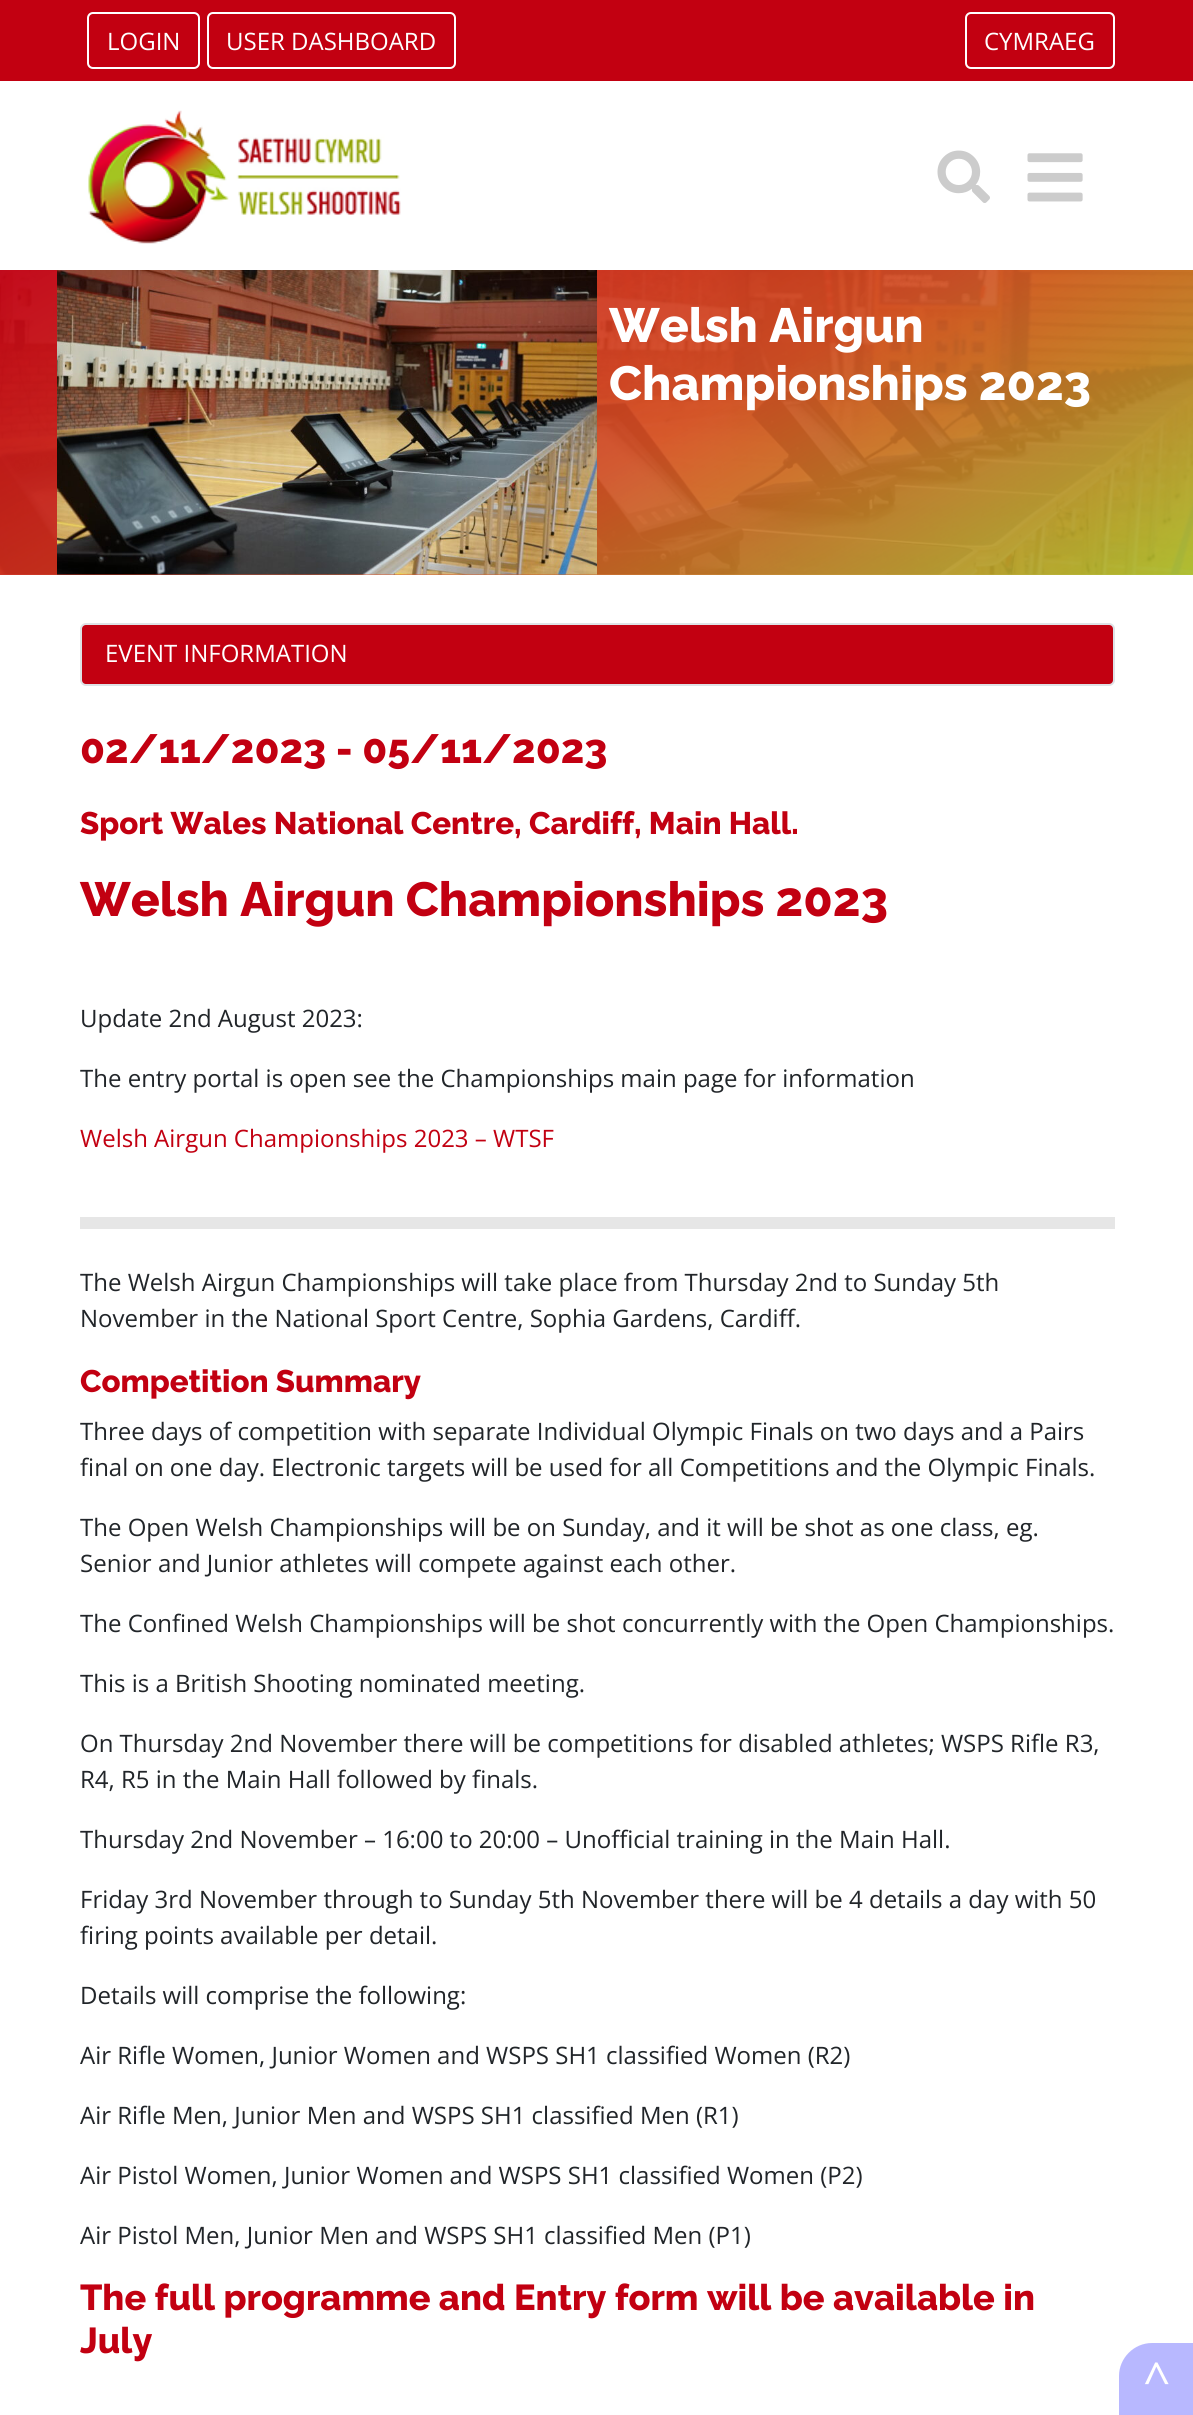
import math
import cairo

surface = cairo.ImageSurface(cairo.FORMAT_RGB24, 1193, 2415)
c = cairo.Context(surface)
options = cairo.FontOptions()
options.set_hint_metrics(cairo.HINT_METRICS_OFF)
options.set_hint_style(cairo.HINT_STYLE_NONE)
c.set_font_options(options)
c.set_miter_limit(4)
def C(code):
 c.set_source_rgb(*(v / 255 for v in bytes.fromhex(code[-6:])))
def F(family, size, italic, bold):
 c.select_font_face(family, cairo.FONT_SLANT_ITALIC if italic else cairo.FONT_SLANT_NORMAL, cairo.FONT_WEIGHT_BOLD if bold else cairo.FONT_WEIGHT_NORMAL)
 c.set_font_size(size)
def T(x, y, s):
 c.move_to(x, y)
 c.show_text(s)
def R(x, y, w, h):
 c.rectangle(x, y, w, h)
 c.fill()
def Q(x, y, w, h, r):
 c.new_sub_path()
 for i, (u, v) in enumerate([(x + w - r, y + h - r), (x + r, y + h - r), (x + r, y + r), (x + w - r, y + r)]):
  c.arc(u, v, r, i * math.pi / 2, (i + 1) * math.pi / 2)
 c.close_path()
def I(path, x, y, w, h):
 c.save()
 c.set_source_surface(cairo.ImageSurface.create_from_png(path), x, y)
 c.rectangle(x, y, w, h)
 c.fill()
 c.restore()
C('ffffff')
c.paint()
C('c20011')
R(0,0,1193,81)
Q(88,13,111,55,5)
C('ffffff')
c.stroke()
F('Open Sans',24,0,0)
T(107,50,'LOGIN')
Q(208,13,247,55,5)
c.stroke()
T(226,50,'USER DASHBOARD')
Q(966,13,148,55,5)
c.stroke()
T(984,50,'CYMRAEG')
I('1.png',88,110,313,134)
I('2.png',937,150,53,53)
I('3.png',1027,153,56,49)
I('4.png',0,270,1193,305)
gradient = cairo.LinearGradient(812,795,382,50)
gradient.add_color_stop_rgba(0,0.678,0.757,0.169,.9)
gradient.add_color_stop_rgba(.45,0.851,0.314,0.141,.9)
gradient.add_color_stop_rgba(1,0.761,0.004,0.078,.95)
c.set_source(gradient)
R(0,270,1193,305)
I('5.png',57,270,540,305)
F('Raleway ExtraBold',48,0,0)
C('ffffff')
T(609,342,'Welsh Airgun')
T(609,400,'Championships 2023')
C('c20011')
Q(81,624,1033,61,5)
c.fill_preserve()
C('dee2e6')
c.stroke()
F('Open Sans',24,0,0)
C('ffffff')
T(105,662,'EVENT INFORMATION')
F('Raleway ExtraBold',40.75,0,0)
C('c20011')
T(80,763,'02/11/2023 - 05/11/2023')
F('Raleway ExtraBold',31.2,0,0)
T(80,834,'Sport Wales National Centre, Cardiff, Main Hall.')
F('Raleway ExtraBold',48,0,0)
T(80,916,'Welsh Airgun Championships 2023')
F('Open Sans',24,0,0)
C('212529')
T(80,1027,'Update 2nd August 2023:')
T(80,1087,'The entry portal is open see the Championships main page for information')
C('c20011')
T(80,1147,'Welsh Airgun Championships 2023 – WTSF')
C('e6e6e6')
R(80,1217,1035,12)
C('212529')
T(80,1291,'The Welsh Airgun Championships will take place from Thursday 2nd to Sunday 5th')
T(80,1327,'November in the National Sport Centre, Sophia Gardens, Cardiff.')
F('Raleway ExtraBold',31.2,0,0)
C('c20011')
T(80,1392,'Competition Summary')
F('Open Sans',24,0,0)
C('212529')
T(80,1440,'Three days of competition with separate Individual Olympic Finals on two days and a Pairs')
T(80,1476,'final on one day. Electronic targets will be used for all Competitions and the Olympic Finals.')
T(80,1536,'The Open Welsh Championships will be on Sunday, and it will be shot as one class, eg.')
T(80,1572,'Senior and Junior athletes will compete against each other.')
T(80,1632,'The Confined Welsh Championships will be shot concurrently with the Open Championships.')
T(80,1692,'This is a British Shooting nominated meeting.')
T(80,1752,'On Thursday 2nd November there will be competitions for disabled athletes; WSPS Rifle R3,')
T(80,1788,'R4, R5 in the Main Hall followed by finals.')
T(80,1848,'Thursday 2nd November – 16:00 to 20:00 – Unofficial training in the Main Hall.')
T(80,1908,'Friday 3rd November through to Sunday 5th November there will be 4 details a day with 50')
T(80,1944,'firing points available per detail.')
T(80,2004,'Details will comprise the following:')
T(80,2064,'Air Rifle Women, Junior Women and WSPS SH1 classified Women (R2)')
T(80,2124,'Air Rifle Men, Junior Men and WSPS SH1 classified Men (R1)')
T(80,2184,'Air Pistol Women, Junior Women and WSPS SH1 classified Women (P2)')
T(80,2244,'Air Pistol Men, Junior Men and WSPS SH1 classified Men (P1)')
F('Raleway ExtraBold',36,0,0)
C('c20011')
T(80,2310,'The full programme and Entry form will be available in')
T(80,2353,'July')
C('b8b8ff')
c.new_path()
c.move_to(1152,2343)
c.line_to(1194,2343)
c.line_to(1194,2415)
c.line_to(1119,2415)
c.line_to(1119,2376)
c.curve_to(1119,2358,1134,2343,1152,2343)
c.close_path()
c.fill()
F('Open Sans',48,0,0)
C('ffffff')
T(1143,2397,'^')
surface.write_to_png('o.png')
